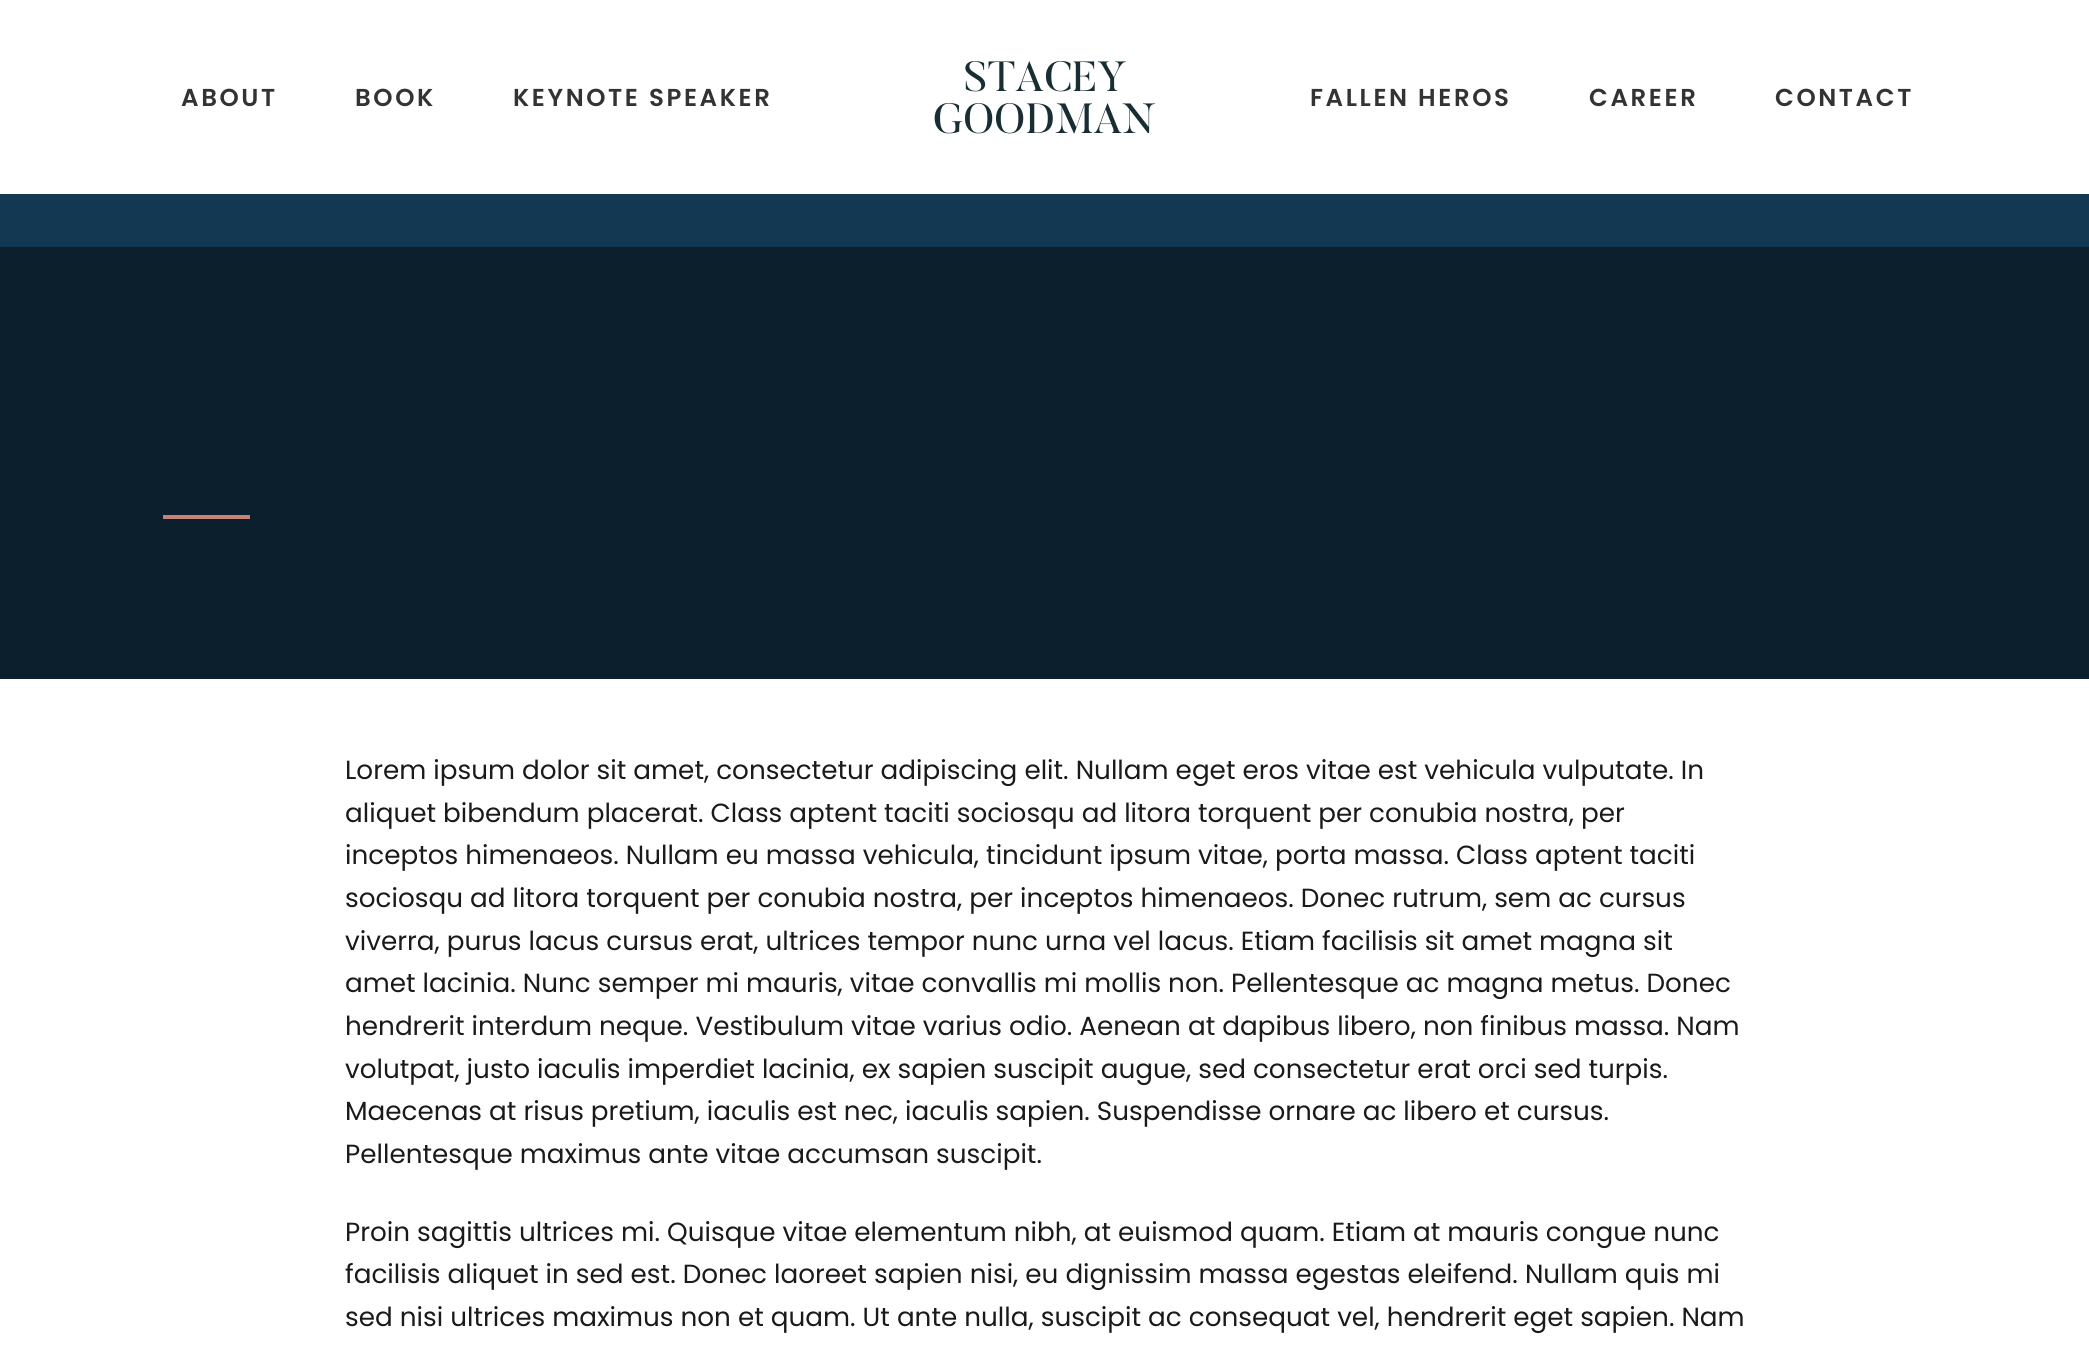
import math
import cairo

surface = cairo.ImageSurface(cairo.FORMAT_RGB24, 2089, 1355)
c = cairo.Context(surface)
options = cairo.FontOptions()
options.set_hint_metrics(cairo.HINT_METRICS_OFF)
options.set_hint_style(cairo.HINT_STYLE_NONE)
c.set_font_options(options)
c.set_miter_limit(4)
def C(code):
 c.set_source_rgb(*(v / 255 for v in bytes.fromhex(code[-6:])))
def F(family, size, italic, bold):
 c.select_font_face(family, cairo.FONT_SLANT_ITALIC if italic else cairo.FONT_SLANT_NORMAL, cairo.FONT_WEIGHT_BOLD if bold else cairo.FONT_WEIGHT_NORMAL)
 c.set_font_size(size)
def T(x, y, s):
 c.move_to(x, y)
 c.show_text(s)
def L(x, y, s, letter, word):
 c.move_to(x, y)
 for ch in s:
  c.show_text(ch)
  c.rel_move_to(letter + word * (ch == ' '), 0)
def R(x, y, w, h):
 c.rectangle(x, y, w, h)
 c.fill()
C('ffffff')
c.paint()
F('Poppins SemiBold',24.5,0,0)
C('333333')
L(181,106,'ABOUT',2.6,0)
L(355,106,'BOOK',2.6,0)
L(513,106,'KEYNOTE SPEAKER',2.6,0)
F('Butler',42,0,0)
C('182e33')
T(964,91,'STACEY')
T(933,133,'GOODMAN')
F('Poppins SemiBold',24.5,0,0)
C('333333')
L(1310,106,'FALLEN HEROS',2.6,0)
L(1589,106,'CAREER',2.6,0)
L(1775,106,'CONTACT',2.6,0)
C('133852')
R(0,194,2089,53)
C('0b202c')
R(0,247,2089,432)
C('c78176')
R(163,515,87,4)
F('Poppins',26.25,0,0)
C('1a1a1a')
T(345,779,'Lorem ipsum dolor sit amet, consectetur adipiscing elit. Nullam eget eros vitae est vehicula vulputate. In')
T(345,822,'aliquet bibendum placerat. Class aptent taciti sociosqu ad litora torquent per conubia nostra, per')
T(345,864,'inceptos himenaeos. Nullam eu massa vehicula, tincidunt ipsum vitae, porta massa. Class aptent taciti')
T(345,907,'sociosqu ad litora torquent per conubia nostra, per inceptos himenaeos. Donec rutrum, sem ac cursus')
T(345,950,'viverra, purus lacus cursus erat, ultrices tempor nunc urna vel lacus. Etiam facilisis sit amet magna sit')
T(345,992,'amet lacinia. Nunc semper mi mauris, vitae convallis mi mollis non. Pellentesque ac magna metus. Donec')
T(345,1035,'hendrerit interdum neque. Vestibulum vitae varius odio. Aenean at dapibus libero, non finibus massa. Nam')
T(345,1078,'volutpat, justo iaculis imperdiet lacinia, ex sapien suscipit augue, sed consectetur erat orci sed turpis.')
T(345,1120,'Maecenas at risus pretium, iaculis est nec, iaculis sapien. Suspendisse ornare ac libero et cursus.')
T(345,1163,'Pellentesque maximus ante vitae accumsan suscipit.')
T(345,1241,'Proin sagittis ultrices mi. Quisque vitae elementum nibh, at euismod quam. Etiam at mauris congue nunc')
T(345,1283,'facilisis aliquet in sed est. Donec laoreet sapien nisi, eu dignissim massa egestas eleifend. Nullam quis mi')
T(345,1326,'sed nisi ultrices maximus non et quam. Ut ante nulla, suscipit ac consequat vel, hendrerit eget sapien. Nam')
surface.write_to_png('o.png')
